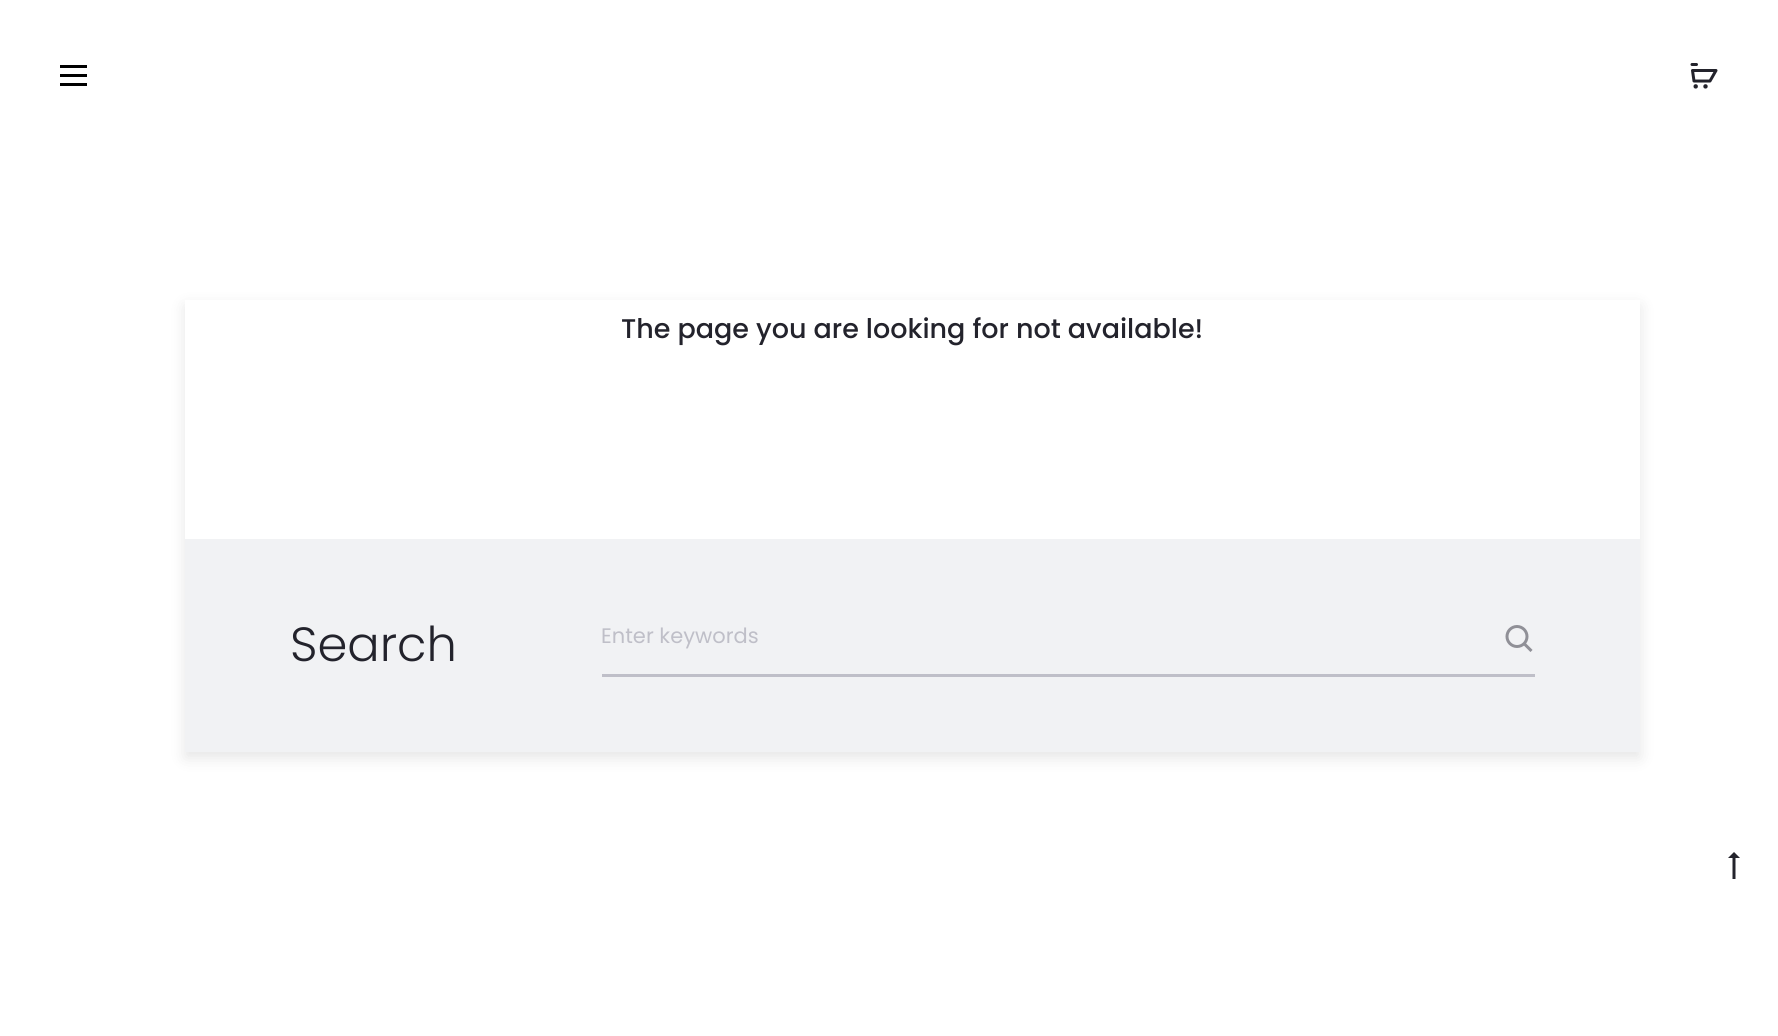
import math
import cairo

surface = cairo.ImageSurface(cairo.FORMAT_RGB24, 1778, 1036)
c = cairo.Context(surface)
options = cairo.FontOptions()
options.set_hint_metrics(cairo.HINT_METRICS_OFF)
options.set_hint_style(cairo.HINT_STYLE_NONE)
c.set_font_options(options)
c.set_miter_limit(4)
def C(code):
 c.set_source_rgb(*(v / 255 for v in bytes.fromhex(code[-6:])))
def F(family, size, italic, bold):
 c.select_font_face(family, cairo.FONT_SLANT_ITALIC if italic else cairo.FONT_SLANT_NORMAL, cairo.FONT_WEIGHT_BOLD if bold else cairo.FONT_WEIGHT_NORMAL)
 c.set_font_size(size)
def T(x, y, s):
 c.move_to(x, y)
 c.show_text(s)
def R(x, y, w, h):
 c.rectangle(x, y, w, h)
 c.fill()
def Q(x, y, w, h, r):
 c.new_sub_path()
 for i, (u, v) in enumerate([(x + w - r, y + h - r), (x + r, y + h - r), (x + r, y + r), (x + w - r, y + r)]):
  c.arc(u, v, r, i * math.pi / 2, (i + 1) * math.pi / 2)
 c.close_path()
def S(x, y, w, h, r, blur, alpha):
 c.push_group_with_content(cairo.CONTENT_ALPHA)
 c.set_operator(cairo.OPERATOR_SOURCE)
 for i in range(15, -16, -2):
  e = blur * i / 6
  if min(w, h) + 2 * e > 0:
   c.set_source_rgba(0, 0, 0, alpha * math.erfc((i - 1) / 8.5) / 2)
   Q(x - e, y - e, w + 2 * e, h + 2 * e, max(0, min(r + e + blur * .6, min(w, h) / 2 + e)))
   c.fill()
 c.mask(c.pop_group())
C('ffffff')
c.paint()
C('000000')
R(60,74,27,3)
R(60,65,27,3)
R(60,83,27,3)
c.new_path()
c.move_to(1692.5,70.5)
c.line_to(1694,81)
c.line_to(1710,81)
c.line_to(1716,70.5)
c.close_path()
C('23232c')
c.set_line_width(3)
c.set_line_join(cairo.LINE_JOIN_ROUND)
c.stroke()
c.arc(1695.7,86.4,2.2,0,2 * math.pi)
c.fill()
c.arc(1705.5,86.4,2.2,0,2 * math.pi)
c.fill()
c.new_path()
c.move_to(1692,64.5)
c.line_to(1696.5,64.5)
c.set_line_cap(cairo.LINE_CAP_ROUND)
c.set_line_join(cairo.LINE_JOIN_MITER)
c.stroke()
c.save()
c.set_fill_rule(cairo.FILL_RULE_EVEN_ODD)
c.new_path()
c.move_to(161,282)
c.line_to(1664,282)
c.line_to(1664,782)
c.line_to(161,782)
c.close_path()
c.move_to(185,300)
c.line_to(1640,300)
c.line_to(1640,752)
c.line_to(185,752)
c.close_path()
c.clip()
C('030303')
S(185,306,1455,452,0,7.5,.1)
c.restore()
c.set_source_rgba(1,1,1,0.9)
R(1639,305,1,234)
F('Poppins Medium',27,0,0)
C('23232c')
T(621,338,'The page you are looking for not available!')
C('f1f2f4')
R(185,539,1455,213)
F('Poppins Light',48,0,0)
C('23232c')
T(290,661,'Search')
C('bfbfc8')
R(602,674,933,3)
F('Poppins',21,0,0)
T(601,643,'Enter keywords')
c.new_path()
c.arc(1517,636.5,10,0,2 * math.pi)
C('909097')
c.set_line_cap(cairo.LINE_CAP_BUTT)
c.stroke()
c.new_path()
c.move_to(1524,643.5)
c.line_to(1531.5,651)
c.stroke()
C('23232c')
c.new_path()
c.move_to(1732.5,858)
c.line_to(1732.5,879)
c.line_to(1735.5,879)
c.line_to(1735.5,858)
c.line_to(1740,858)
c.line_to(1734,852)
c.line_to(1728,858)
c.close_path()
c.fill()
surface.write_to_png('o.png')
